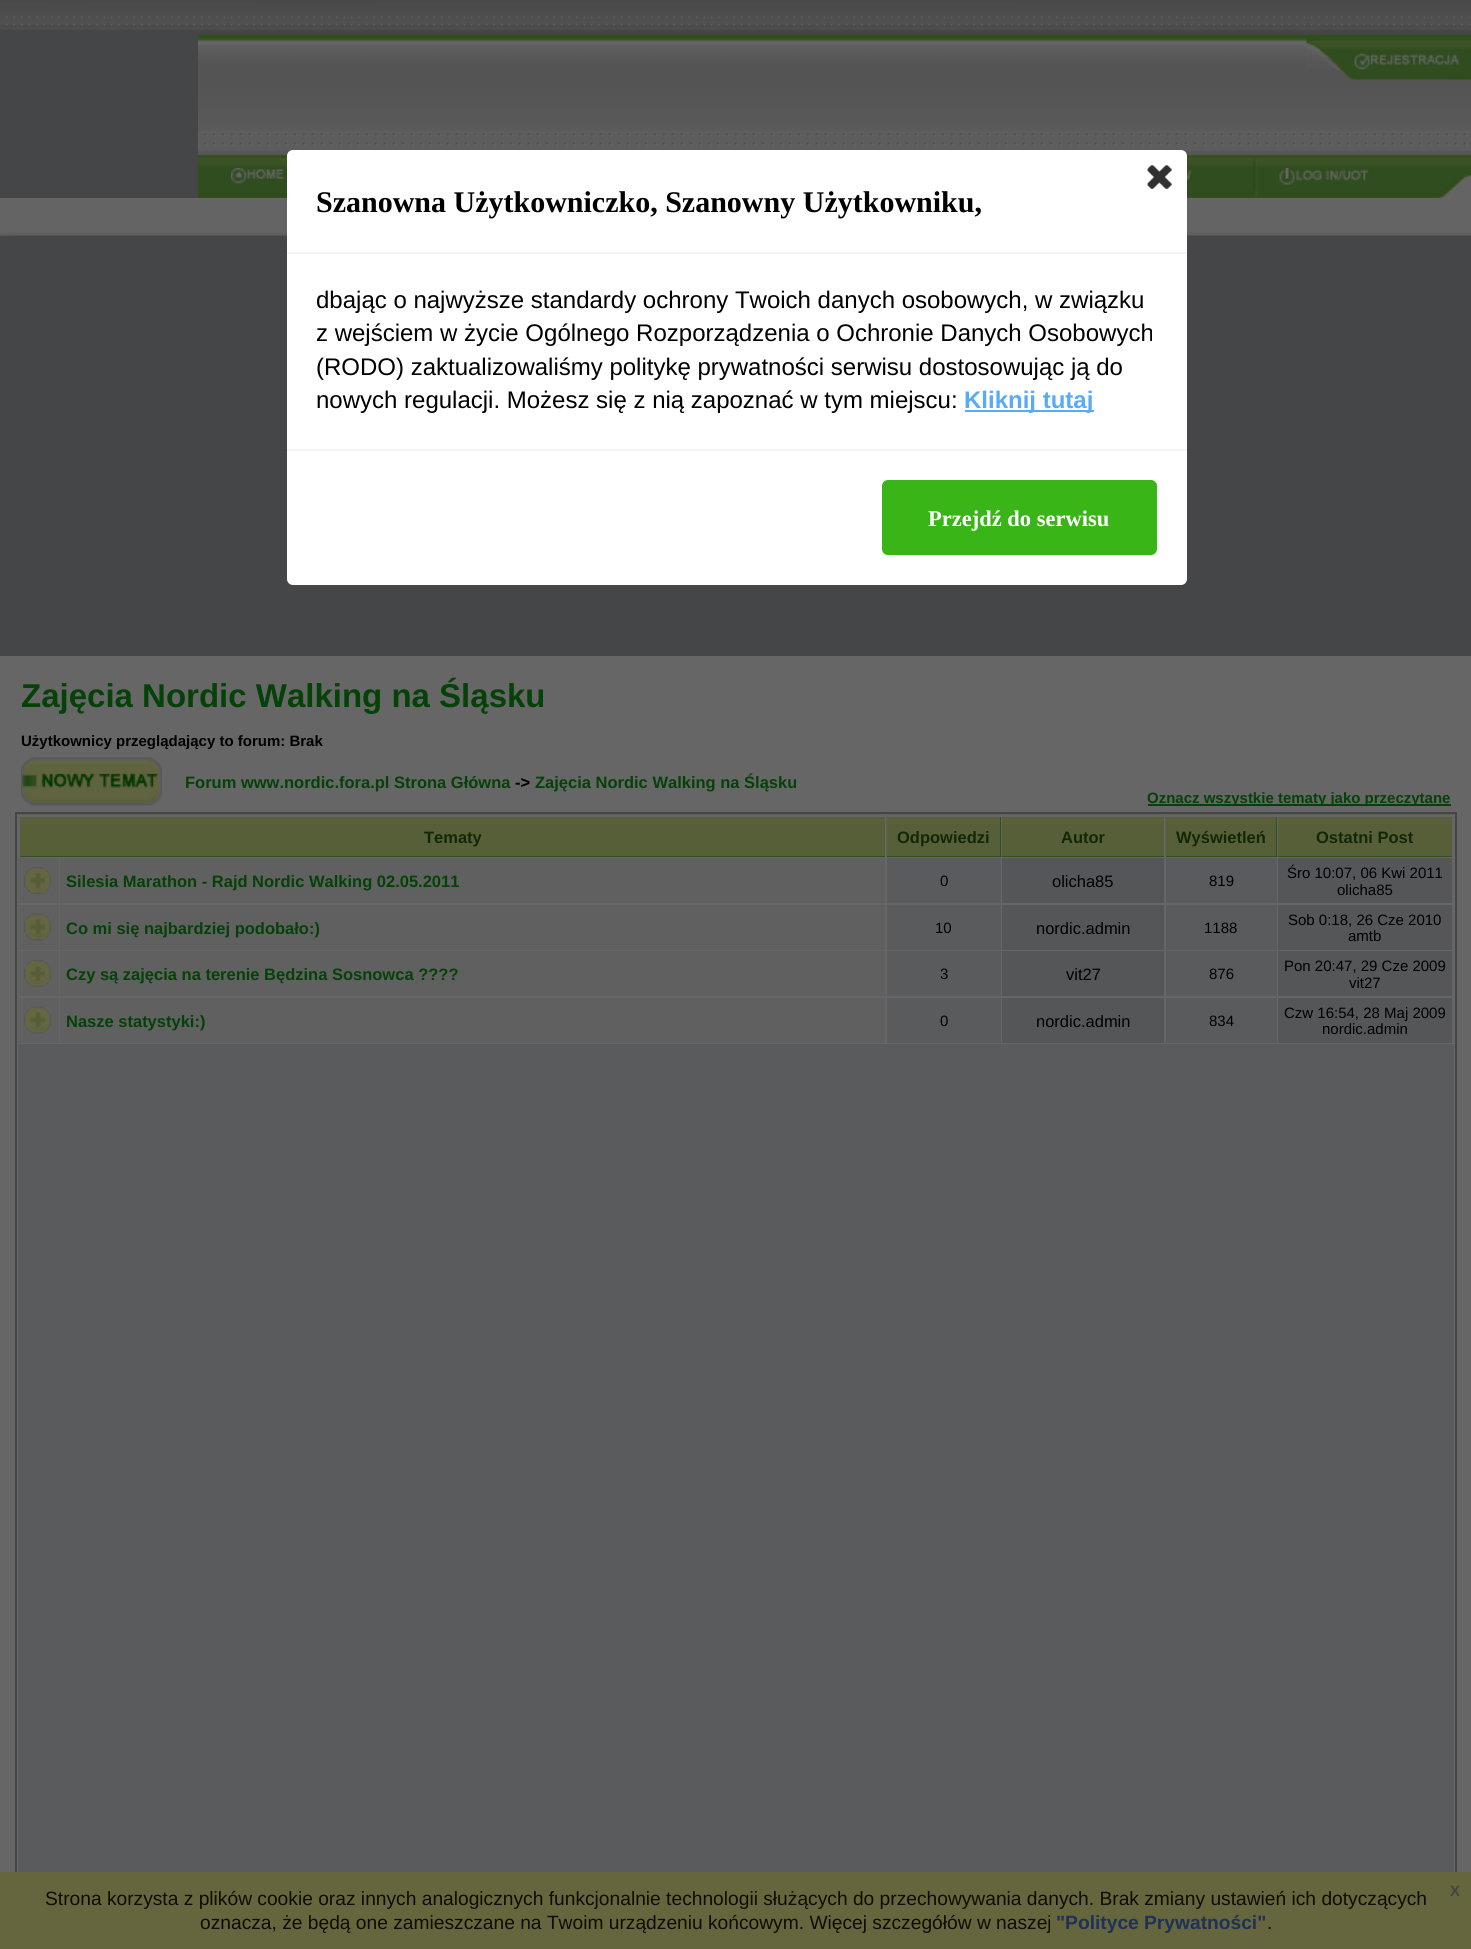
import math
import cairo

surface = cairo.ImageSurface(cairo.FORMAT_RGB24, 1471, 1949)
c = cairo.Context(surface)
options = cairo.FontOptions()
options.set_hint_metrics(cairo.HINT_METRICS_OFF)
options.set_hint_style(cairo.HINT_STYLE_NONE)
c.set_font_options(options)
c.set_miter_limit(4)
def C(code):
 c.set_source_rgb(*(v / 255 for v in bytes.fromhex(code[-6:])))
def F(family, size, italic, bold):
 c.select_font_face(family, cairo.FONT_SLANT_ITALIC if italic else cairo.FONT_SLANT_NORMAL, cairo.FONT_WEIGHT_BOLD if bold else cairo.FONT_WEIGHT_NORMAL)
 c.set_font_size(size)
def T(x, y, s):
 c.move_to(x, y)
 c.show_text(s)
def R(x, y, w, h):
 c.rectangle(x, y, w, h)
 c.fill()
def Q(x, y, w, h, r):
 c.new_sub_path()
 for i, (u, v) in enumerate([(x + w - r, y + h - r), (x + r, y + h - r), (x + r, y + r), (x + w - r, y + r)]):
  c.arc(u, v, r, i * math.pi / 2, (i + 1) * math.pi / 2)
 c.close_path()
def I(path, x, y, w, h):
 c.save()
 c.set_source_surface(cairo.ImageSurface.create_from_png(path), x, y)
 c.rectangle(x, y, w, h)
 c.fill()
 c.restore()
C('444648')
c.paint()
I('1.png',0,0,1471,34)
I('2.png',0,16,8,10)
I('3.png',198,34,1273,122)
I('4.png',1306,37,165,43)
I('5.png',198,156,1273,42)
I('6.png',231,168,53,16)
I('7.png',1187,168,5,18)
I('8.png',1252,157,6,41)
I('9.png',1279,168,90,17)
I('10.png',1438,175,33,23)
C('646464')
R(0,198,1471,27)
I('12.png',0,225,1471,11)
C('ffffff')
Q(287,150,900,435,6)
c.fill()
C('f5f5f5')
R(287,252,900,2)
I('11.png',1147,165,25,24)
F('Liberation Serif',30,0,1)
C('000000')
T(316,212,'Szanowna Użytkowniczko, Szanowny Użytkowniku,')
F('Liberation Sans',24,0,0)
T(316,308,'dbając o najwyższe standardy ochrony Twoich danych osobowych, w związku')
T(316,341,'z wejściem w życie Ogólnego Rozporządzenia o Ochronie Danych Osobowych')
T(316,375,'(RODO) zaktualizowaliśmy politykę prywatności serwisu dostosowując ją do')
T(316,408,'nowych regulacji. Możesz się z nią zapoznać w tym miejscu:')
C('58abf9')
R(965,410,129,2)
F('Liberation Sans',24,0,1)
T(964,408,'Kliknij tutaj')
C('f5f5f5')
R(287,449,900,2)
C('39b518')
Q(883,481,273,73,5)
c.fill_preserve()
c.stroke()
F('Liberation Serif',22.5,0,1)
C('ffffff')
T(928,526,'Przejdź do serwisu')
C('585959')
R(0,235,9,1)
C('666666')
R(0,656,1471,1216)
F('Liberation Sans',33,0,1)
C('044207')
T(21,707,'Zajęcia Nordic Walking na Śląsku')
F('Liberation Sans',15,0,1)
C('000000')
T(21,746,'Użytkownicy przeglądający to forum: Brak')
I('13.png',21,757,141,49)
F('Liberation Sans',16.5,0,1)
C('044207')
T(185,788,'Forum www.nordic.fora.pl Strona Główna')
C('000000')
T(515,788,'->')
C('044207')
T(535,788,'Zajęcia Nordic Walking na Śląsku')
R(1148,804,303,2)
F('Liberation Sans',15,0,1)
T(1147,803,'Oznacz wszystkie tematy jako przeczytane')
c.rectangle(16,813,1440,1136)
C('444648')
c.stroke()
C('044207')
R(20,856,865,1)
I('14.png',18,814,867,43)
C('666666')
R(18,815,867,2)
R(18,815,2,42)
F('Liberation Sans',16.5,0,1)
C('122804')
T(424,843,'Tematy')
C('044207')
R(887,817,114,40)
I('15.png',886,814,115,43)
C('666666')
R(887,815,114,2)
C('122804')
T(897,843,'Odpowiedzi')
C('044207')
R(1002,856,162,1)
I('16.png',1002,814,162,43)
C('666666')
R(1002,815,162,2)
C('122804')
T(1061,843,'Autor')
C('044207')
R(1166,817,111,40)
I('17.png',1165,814,112,43)
C('666666')
R(1166,815,111,2)
C('122804')
T(1176,843,'Wyświetleń')
C('044207')
R(1278,856,174,1)
I('18.png',1278,814,176,43)
C('666666')
R(1278,815,176,2)
R(1452,815,2,42)
C('122804')
T(1316,843,'Ostatni Post')
C('606060')
R(18,858,41,45)
I('19.png',24,867,27,27)
R(60,858,825,45)
C('044207')
T(66,887,'Silesia Marathon - Rajd Nordic Walking 02.05.2011')
C('595b5c')
R(887,858,114,45)
F('Liberation Sans',15,0,0)
C('000000')
T(940,886,'0')
C('545658')
R(1002,858,162,45)
F('Liberation Sans',16.5,0,0)
C('000000')
T(1052,887,'olicha85')
C('595b5c')
R(1166,858,111,45)
F('Liberation Sans',15,0,0)
C('000000')
T(1209,886,'819')
C('545658')
R(1278,858,174,45)
C('000000')
T(1287,878,'Śro 10:07, 06 Kwi 2011')
T(1337,895,'olicha85')
C('606060')
R(18,905,41,45)
I('20.png',24,913,27,28)
R(60,905,825,45)
F('Liberation Sans',16.5,0,1)
C('044207')
T(66,934,'Co mi się najbardziej podobało:)')
C('595b5c')
R(887,905,114,45)
F('Liberation Sans',15,0,0)
C('000000')
T(935,933,'10')
C('545658')
R(1002,905,162,45)
F('Liberation Sans',16.5,0,0)
C('000000')
T(1036,934,'nordic.admin')
C('595b5c')
R(1166,905,111,45)
F('Liberation Sans',15,0,0)
C('000000')
T(1204,933,'1188')
C('545658')
R(1278,905,174,45)
C('000000')
T(1288,925,'Sob 0:18, 26 Cze 2010')
T(1348,941,'amtb')
C('606060')
R(18,951,41,45)
I('19.png',24,960,27,27)
R(60,951,825,45)
F('Liberation Sans',16.5,0,1)
C('044207')
T(66,980,'Czy są zajęcia na terenie Będzina Sosnowca ????')
C('595b5c')
R(887,951,114,45)
F('Liberation Sans',15,0,0)
C('000000')
T(940,979,'3')
C('545658')
R(1002,951,162,45)
F('Liberation Sans',16.5,0,0)
C('000000')
T(1066,980,'vit27')
C('595b5c')
R(1166,951,111,45)
F('Liberation Sans',15,0,0)
C('000000')
T(1209,979,'876')
C('545658')
R(1278,951,174,45)
C('000000')
T(1284,971,'Pon 20:47, 29 Cze 2009')
T(1349,988,'vit27')
C('606060')
R(18,998,41,45)
I('20.png',24,1006,27,28)
R(60,998,825,45)
F('Liberation Sans',16.5,0,1)
C('044207')
T(66,1027,'Nasze statystyki:)')
C('595b5c')
R(887,998,114,45)
F('Liberation Sans',15,0,0)
C('000000')
T(940,1026,'0')
C('545658')
R(1002,998,162,45)
F('Liberation Sans',16.5,0,0)
C('000000')
T(1036,1027,'nordic.admin')
C('595b5c')
R(1166,998,111,45)
F('Liberation Sans',15,0,0)
C('000000')
T(1209,1026,'834')
C('545658')
R(1278,998,174,45)
C('000000')
T(1284,1018,'Czw 16:54, 28 Maj 2009')
T(1322,1034,'nordic.admin')
C('595b5c')
R(18,1044,1436,828)
C('65653e')
R(0,1872,1471,77)
F('Liberation Sans',19.2,0,0)
C('0e0d00')
T(45,1905,'Strona korzysta z plików cookie oraz innych analogicznych funkcjonalnie technologii służących do przechowywania danych. Brak zmiany ustawień ich dotyczących')
T(200,1929,'oznacza, że będą one zamieszczane na Twoim urządzeniu końcowym. Więcej szczegółów w naszej')
F('Liberation Sans',19.2,0,1)
C('1e3258')
T(1056,1929,'"Polityce Prywatności"')
F('Liberation Sans',19.2,0,0)
C('0e0d00')
T(1267,1929,'.')
F('Liberation Sans',15,0,1)
C('444444')
T(1450,1896,'X')
surface.write_to_png('o.png')
